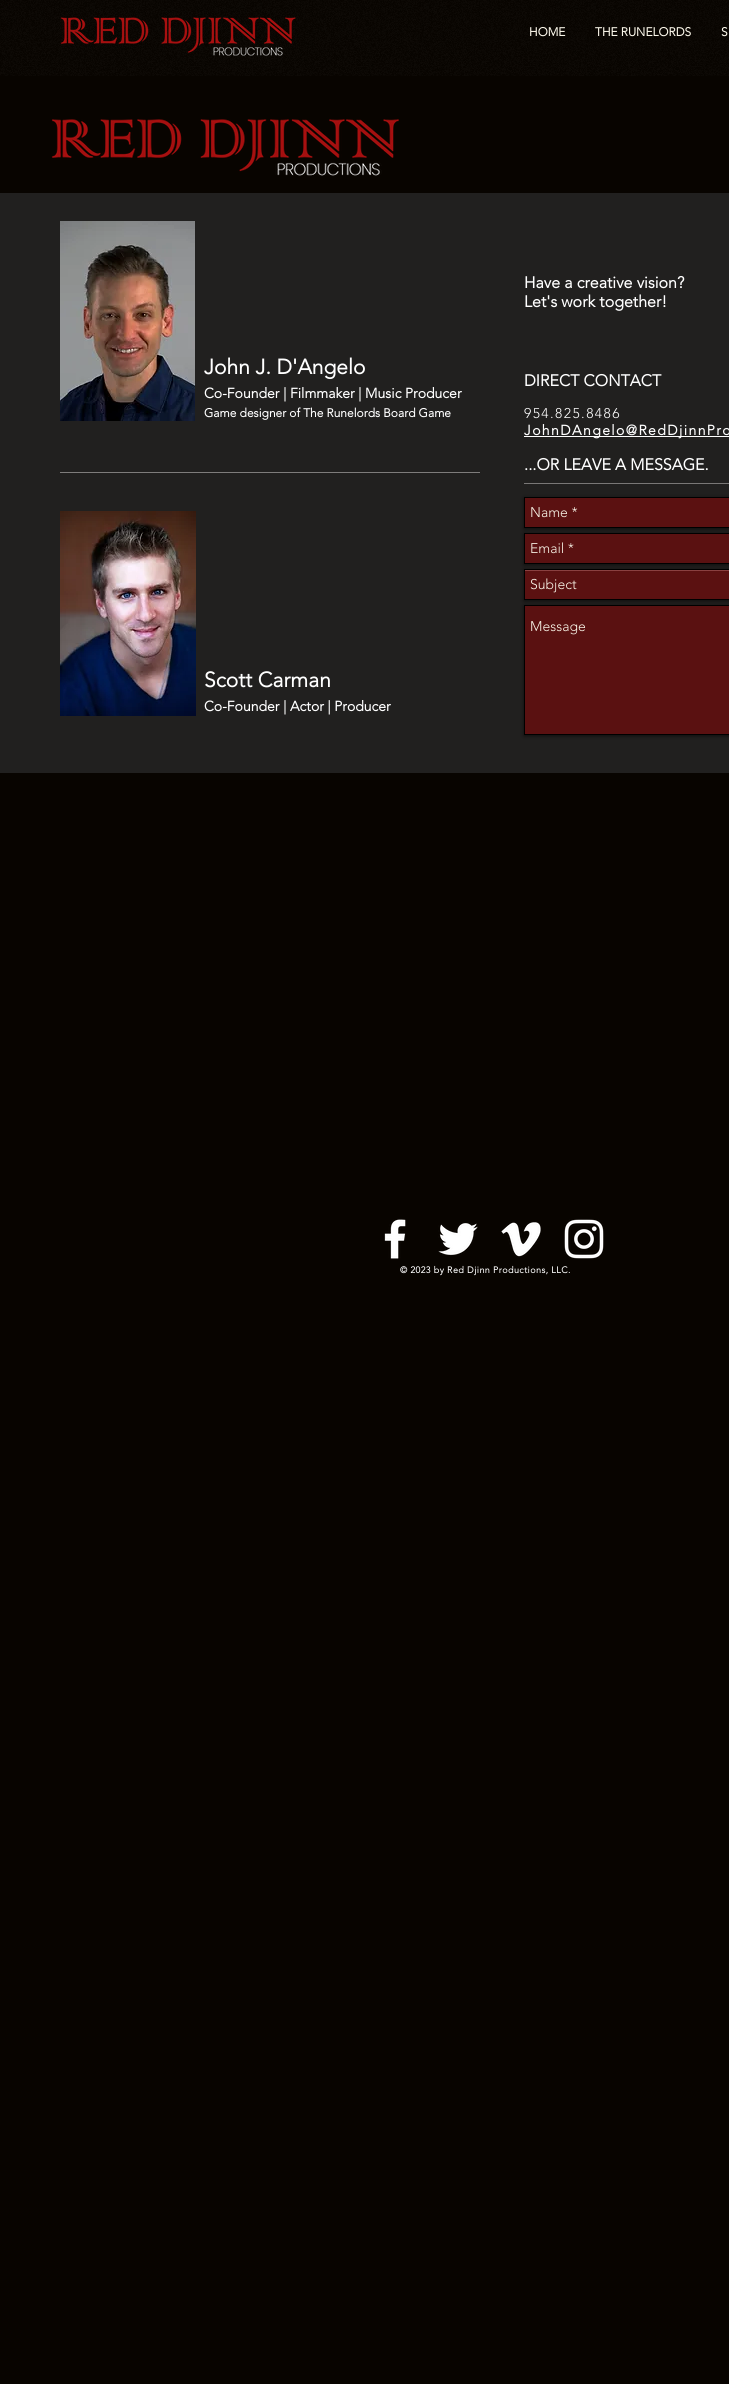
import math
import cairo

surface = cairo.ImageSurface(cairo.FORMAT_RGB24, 729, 2384)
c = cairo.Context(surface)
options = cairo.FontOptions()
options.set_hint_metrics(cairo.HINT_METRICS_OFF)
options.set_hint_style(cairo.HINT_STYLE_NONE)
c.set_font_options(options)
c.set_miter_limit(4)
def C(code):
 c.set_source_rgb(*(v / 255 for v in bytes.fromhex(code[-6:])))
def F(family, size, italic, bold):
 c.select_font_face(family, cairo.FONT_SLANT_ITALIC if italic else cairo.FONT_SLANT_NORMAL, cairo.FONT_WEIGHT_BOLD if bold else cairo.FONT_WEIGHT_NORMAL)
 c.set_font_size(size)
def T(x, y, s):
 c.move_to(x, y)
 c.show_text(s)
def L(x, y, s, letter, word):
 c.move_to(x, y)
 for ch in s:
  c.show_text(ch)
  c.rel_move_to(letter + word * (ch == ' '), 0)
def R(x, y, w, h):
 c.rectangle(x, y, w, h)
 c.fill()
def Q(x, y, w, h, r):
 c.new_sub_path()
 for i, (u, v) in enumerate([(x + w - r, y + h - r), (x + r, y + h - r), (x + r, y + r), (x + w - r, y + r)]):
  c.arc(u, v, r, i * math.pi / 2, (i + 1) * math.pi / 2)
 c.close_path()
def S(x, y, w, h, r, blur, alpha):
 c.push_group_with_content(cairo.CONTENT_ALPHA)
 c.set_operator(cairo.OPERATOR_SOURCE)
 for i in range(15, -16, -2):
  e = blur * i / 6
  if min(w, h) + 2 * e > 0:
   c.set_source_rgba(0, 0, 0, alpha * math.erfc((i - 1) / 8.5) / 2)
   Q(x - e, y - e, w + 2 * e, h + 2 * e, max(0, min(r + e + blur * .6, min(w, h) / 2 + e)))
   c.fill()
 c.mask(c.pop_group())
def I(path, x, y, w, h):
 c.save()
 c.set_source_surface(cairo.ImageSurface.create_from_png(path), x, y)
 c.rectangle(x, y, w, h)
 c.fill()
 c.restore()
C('080400')
c.paint()
I('1.png',0,0,729,76)
I('2.png',60,17,236,39)
F('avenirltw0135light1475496',12,0,1)
C('faf6e9')
T(529,36,'HOME')
T(595,36,'THE RUNELORDS')
T(721,36,'S')
I('3.png',51,119,348,57)
C('21201f')
R(0,193,729,580)
C('5b1111')
R(525,571,204,28)
I('4.png',60,221,135,200)
F('avenirltw0135light1475496',16,0,1)
C('ffffff')
T(524,288,'Have a creative vision?')
T(524,307,'Let\'s work together!')
F('avenirltw0135light1475496',21,0,1)
T(204,374,'John J. D\'Angelo')
F('avenirltw0135light1475496',14,0,1)
T(204,398,'Co-Founder | Filmmaker | Music Producer')
F('avenirltw0135light1475496',12,0,1)
T(204,417,'Game designer of The Runelords Board Game')
F('avenirltw0135light1475496',16,0,1)
T(524,386,'DIRECT CONTACT')
F('avenirltw0135light1475496 Light',14,0,0)
L(524,418,'954.825.8486',1.4,0)
R(524,436,205,1)
F('avenirltw0135light1475496',14,0,1)
L(524,435,'JohnDAngelo@RedDjinnPro',1.4,0)
F('avenirltw0135light1475496',16,0,1)
T(524,470,'...OR LEAVE A MESSAGE.')
C('7e7c7b')
R(60,472,420,1)
C('797776')
R(524,483,205,1)
I('5.png',60,511,136,205)
C('000000')
S(524,498,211,31,0,2,.6)
C('5b1111')
c.rectangle(524.5,497.5,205,30)
c.fill_preserve()
C('000000')
c.set_line_width(1)
c.stroke()
F('avenirltw0135light1475496 Light',14,0,0)
C('faf6e9')
T(530,517,'Name *')
C('8a4040')
R(524,570,205,1)
C('000000')
S(524,534,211,31,0,2,.6)
C('5a1111')
c.rectangle(524.5,533.5,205,30)
c.fill_preserve()
C('000000')
c.stroke()
C('faf6e9')
T(530,553,'Email *')
c.save()
c.set_fill_rule(cairo.FILL_RULE_EVEN_ODD)
c.new_path()
c.move_to(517,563)
c.line_to(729,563)
c.line_to(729,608)
c.line_to(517,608)
c.close_path()
c.move_to(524,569)
c.line_to(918,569)
c.line_to(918,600)
c.line_to(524,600)
c.close_path()
c.clip()
C('000000')
S(524,570,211,31,0,2,.6)
c.restore()
c.rectangle(524.5,569.5,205,30)
C('000000')
c.stroke()
C('faf6e9')
T(530,589,'Subject')
C('000000')
S(524,606,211,130,0,2,.6)
C('5a1111')
c.rectangle(524.5,605.5,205,129)
c.fill_preserve()
C('000000')
c.stroke()
C('faf6e9')
T(530,631,'Message')
F('avenirltw0135light1475496',21,0,1)
C('ffffff')
T(204,687,'Scott Carman')
F('avenirltw0135light1475496',14,0,1)
T(204,711,'Co-Founder | Actor | Producer')
I('6.png',384,1219,22,40)
I('7.png',438,1223,40,33)
I('8.png',501,1222,40,35)
I('9.png',564,1219,40,40)
F('avenirltw0135light1475496',9,0,1)
L(400,1273,'© 2023 by Red Djinn Productions, LLC.',.45,0)
surface.write_to_png('o.png')
